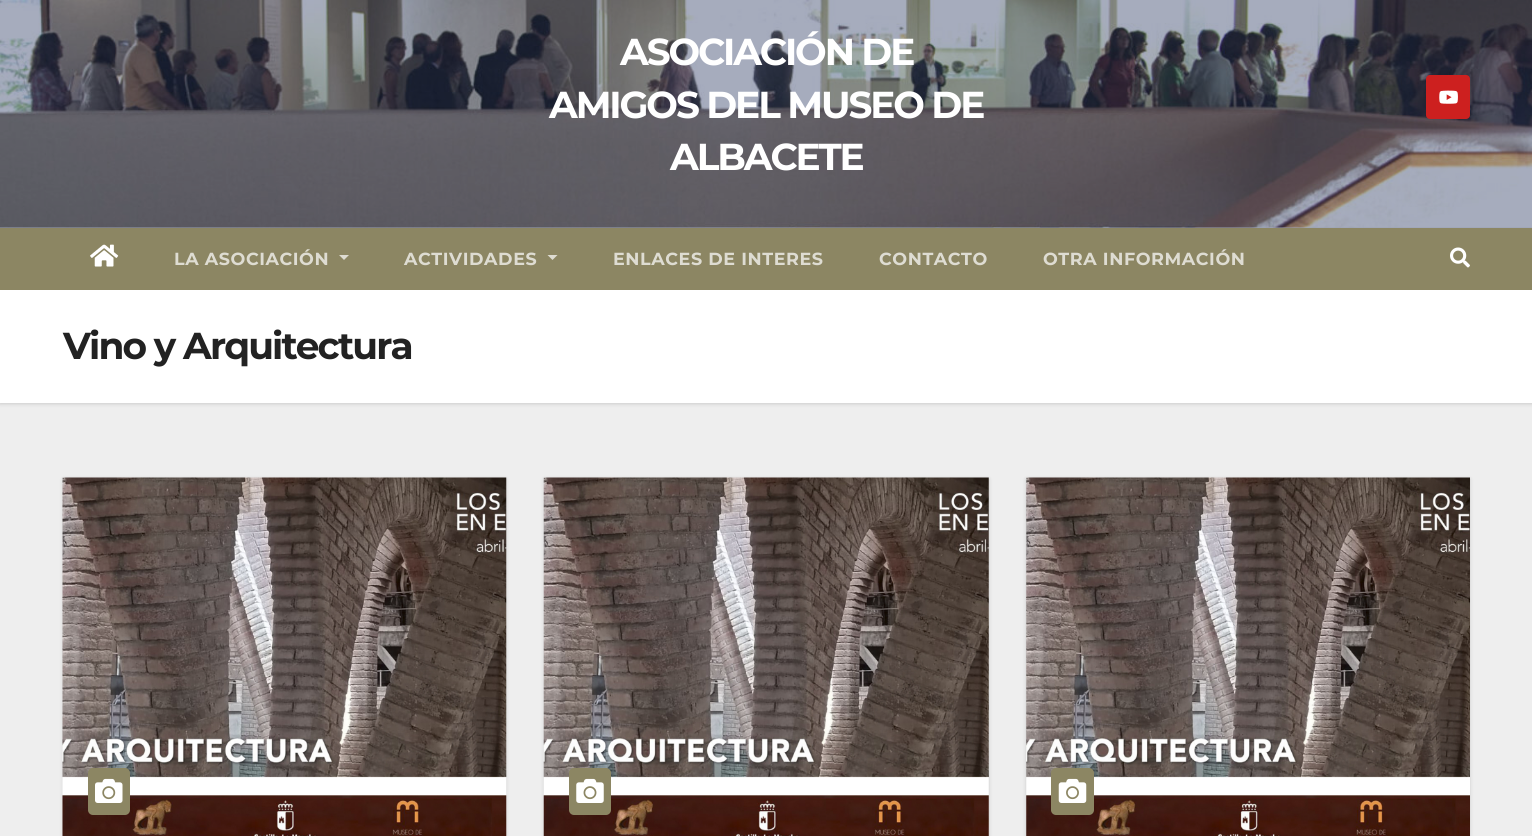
import math
import cairo

surface = cairo.ImageSurface(cairo.FORMAT_RGB24, 1532, 836)
c = cairo.Context(surface)
options = cairo.FontOptions()
options.set_hint_metrics(cairo.HINT_METRICS_OFF)
options.set_hint_style(cairo.HINT_STYLE_NONE)
c.set_font_options(options)
c.set_miter_limit(4)
def C(code):
 c.set_source_rgb(*(v / 255 for v in bytes.fromhex(code[-6:])))
def F(family, size, italic, bold):
 c.select_font_face(family, cairo.FONT_SLANT_ITALIC if italic else cairo.FONT_SLANT_NORMAL, cairo.FONT_WEIGHT_BOLD if bold else cairo.FONT_WEIGHT_NORMAL)
 c.set_font_size(size)
def L(x, y, s, letter, word):
 c.move_to(x, y)
 for ch in s:
  c.show_text(ch)
  c.rel_move_to(letter + word * (ch == ' '), 0)
def R(x, y, w, h):
 c.rectangle(x, y, w, h)
 c.fill()
def Q(x, y, w, h, r):
 c.new_sub_path()
 for i, (u, v) in enumerate([(x + w - r, y + h - r), (x + r, y + h - r), (x + r, y + r), (x + w - r, y + r)]):
  c.arc(u, v, r, i * math.pi / 2, (i + 1) * math.pi / 2)
 c.close_path()
def S(x, y, w, h, r, blur, alpha):
 c.push_group_with_content(cairo.CONTENT_ALPHA)
 c.set_operator(cairo.OPERATOR_SOURCE)
 for i in range(15, -16, -2):
  e = blur * i / 6
  if min(w, h) + 2 * e > 0:
   c.set_source_rgba(0, 0, 0, alpha * math.erfc((i - 1) / 8.5) / 2)
   Q(x - e, y - e, w + 2 * e, h + 2 * e, max(0, min(r + e + blur * .6, min(w, h) / 2 + e)))
   c.fill()
 c.mask(c.pop_group())
def I(path, x, y, w, h):
 c.save()
 c.set_source_surface(cairo.ImageSurface.create_from_png(path), x, y)
 c.rectangle(x, y, w, h)
 c.fill()
 c.restore()
C('eeeeee')
c.paint()
C('9ca2b3')
R(0,227,1532,1)
I('1.png',0,0,1532,228)
F('Montserrat',37.5,0,1)
C('ffffff')
L(620,65,'ASOCIACIÓN DE',-2.1,0)
L(549,118,'AMIGOS DEL MUSEO DE',-2.1,0)
L(670,170,'ALBACETE',-2.1,0)
C('cd201f')
Q(1426,75,44,44,4)
c.fill()
I('2.png',1439,90,19,14)
C('000000')
S(0,291,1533,113,0,2,.15)
C('8c8663')
R(0,228,1532,62)
I('3.png',90,244,29,23)
F('Montserrat',17.5,0,1)
C('dedcd2')
L(174,265,'LA ASOCIACIÓN',.6,0)
c.new_path()
c.move_to(339,255)
c.line_to(349,255)
c.line_to(344,260)
c.close_path()
c.fill()
L(404,265,'ACTIVIDADES',.6,0)
c.new_path()
c.move_to(547.5,255)
c.line_to(557.5,255)
c.line_to(552.5,260)
c.close_path()
c.fill()
L(613,265,'ENLACES DE INTERES',.6,0)
L(879,265,'CONTACTO',.6,0)
L(1043,265,'OTRA INFORMACIÓN',.6,0)
I('4.png',1450,247,20,21)
C('ffffff')
R(0,290,1532,113)
F('Montserrat',37.5,0,1)
C('222222')
L(63,359,'Vino y Arquitectura',-1.9,0)
C('000000')
S(63,479,443,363,0,2,.15)
I('5.png',62,477,445,359)
C('8c8663')
Q(88,768,42,47,5)
c.fill()
I('6.png',95,778,28,25)
C('000000')
S(544,479,445,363,0,2,.15)
I('7.png',543,477,446,359)
C('8c8663')
Q(569,768,42,47,5)
c.fill()
I('8.png',576,778,28,25)
C('000000')
S(1026,479,444,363,0,2,.15)
I('9.png',1026,477,444,359)
C('8c8663')
Q(1051,768,43,47,5)
c.fill()
I('10.png',1058,778,29,25)
surface.write_to_png('o.png')
